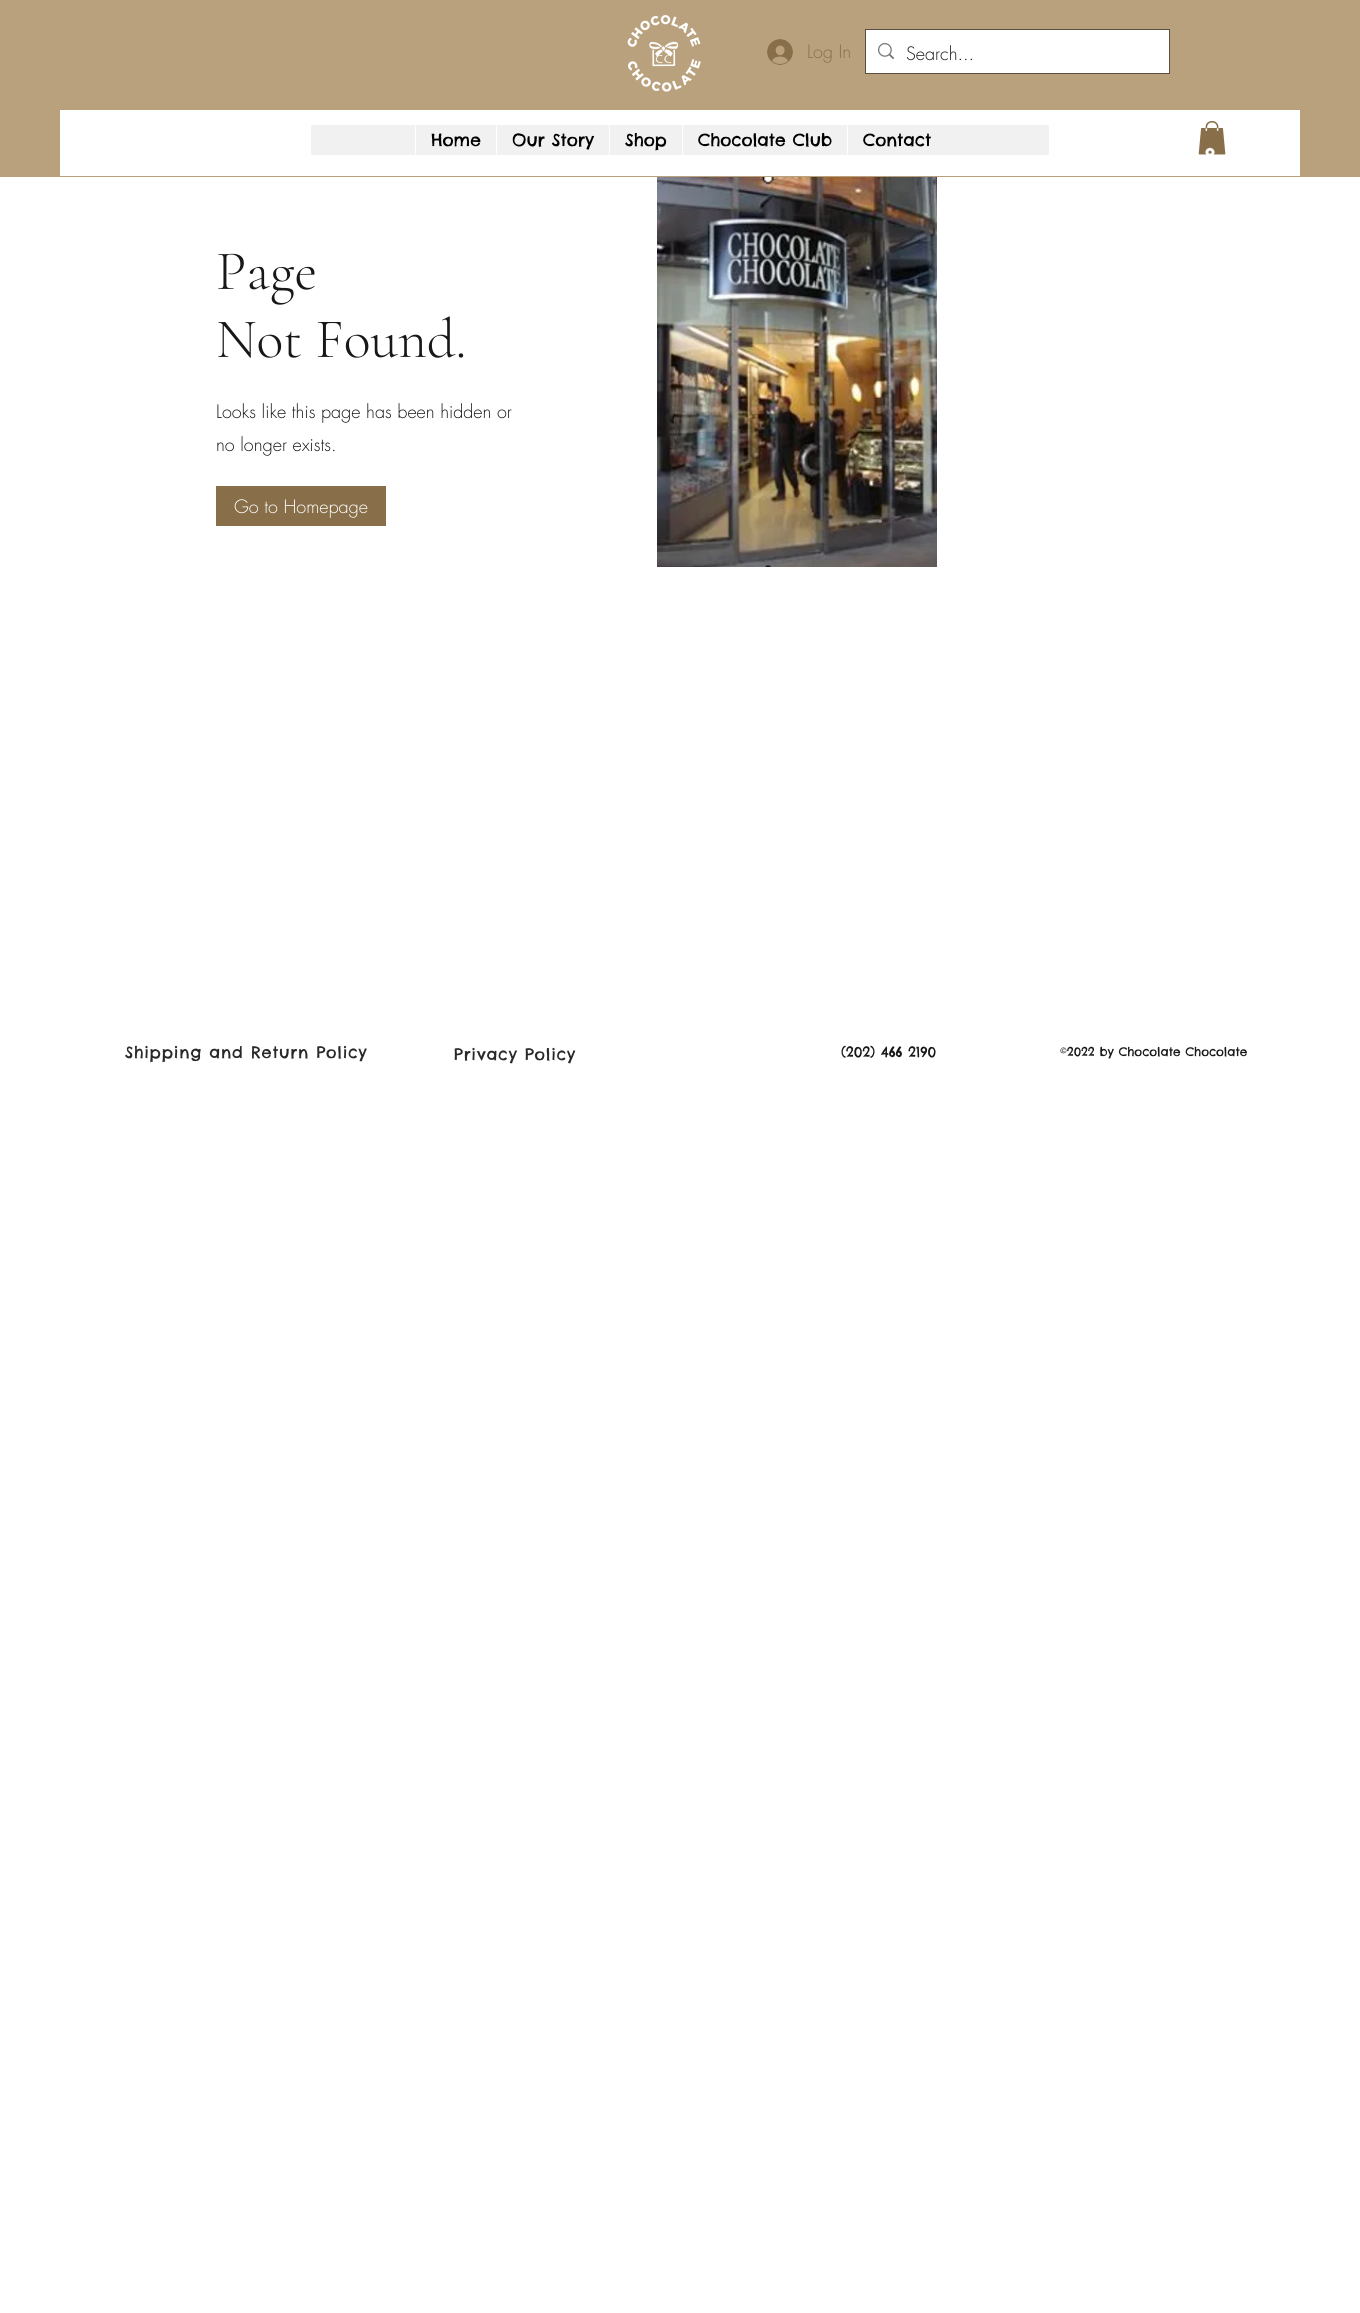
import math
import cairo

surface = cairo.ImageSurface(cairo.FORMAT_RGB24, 1360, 2313)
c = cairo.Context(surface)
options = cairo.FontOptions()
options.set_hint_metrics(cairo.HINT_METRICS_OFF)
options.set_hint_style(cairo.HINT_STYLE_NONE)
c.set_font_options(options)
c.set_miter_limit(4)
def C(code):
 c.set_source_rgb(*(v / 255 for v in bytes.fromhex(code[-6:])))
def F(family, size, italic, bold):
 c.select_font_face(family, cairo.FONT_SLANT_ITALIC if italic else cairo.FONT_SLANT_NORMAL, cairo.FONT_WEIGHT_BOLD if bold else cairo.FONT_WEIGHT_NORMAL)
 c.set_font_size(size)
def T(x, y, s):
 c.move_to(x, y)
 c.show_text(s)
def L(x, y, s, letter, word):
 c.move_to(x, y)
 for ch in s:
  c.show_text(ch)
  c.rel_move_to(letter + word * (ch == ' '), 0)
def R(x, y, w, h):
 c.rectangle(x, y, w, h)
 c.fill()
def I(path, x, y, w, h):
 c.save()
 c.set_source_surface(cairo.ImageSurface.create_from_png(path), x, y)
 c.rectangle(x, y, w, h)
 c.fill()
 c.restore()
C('ffffff')
c.paint()
C('b9a17d')
R(0,0,1360,177)
I('1.png',627,14,74,78)
I('2.png',767,39,26,26)
F('futura Light',18,0,0)
C('886f4a')
T(807,58,'Log In')
c.rectangle(865.5,29.5,304,44)
C('584f40')
c.set_line_width(1)
c.stroke()
C('ffffff')
R(866,30,303,43)
I('3.png',878,43,16,17)
C('181818')
T(906,60,'Search...')
C('ffffff')
R(60,110,1240,66)
C('f1f1f1')
R(311,125,738,30)
C('ffffff')
R(415,125,1,30)
F('Chelsea Market',17,0,0)
C('000000')
T(431,146,'Home')
C('ffffff')
R(496,125,1,30)
C('000000')
T(512,146,'Our Story')
C('ffffff')
R(609,125,1,30)
C('000000')
T(625,146,'Shop')
C('ffffff')
R(682,125,1,30)
C('000000')
T(698,146,'Chocolate Club')
C('ffffff')
R(847,125,1,30)
C('000000')
T(863,146,'Contact')
I('4.png',1198,121,28,34)
I('5.png',1205,147,10,8)
F('Cormorant Garamond Light',56,0,0)
C('181818')
T(216,289,'Page')
T(216,357,'Not Found.')
I('6.png',657,177,280,390)
F('futura Light',18,0,0)
T(216,418,'Looks like this page has been hidden or')
T(216,451,'no longer exists.')
C('886f4a')
R(216,486,170,40)
C('ffffff')
T(234,513,'Go to Homepage')
F('Chelsea Market',16,0,0)
C('292929')
L(125,1058,'Shipping and Return Policy',.8,0)
L(454,1060,'Privacy Policy',.8,0)
F('Chelsea Market',14,0,0)
C('181818')
T(841,1057,'(202) 466 2190')
F('Chelsea Market',12,0,0)
T(1060,1056,'©2022 by Chocolate Chocolate')
surface.write_to_png('o.png')
